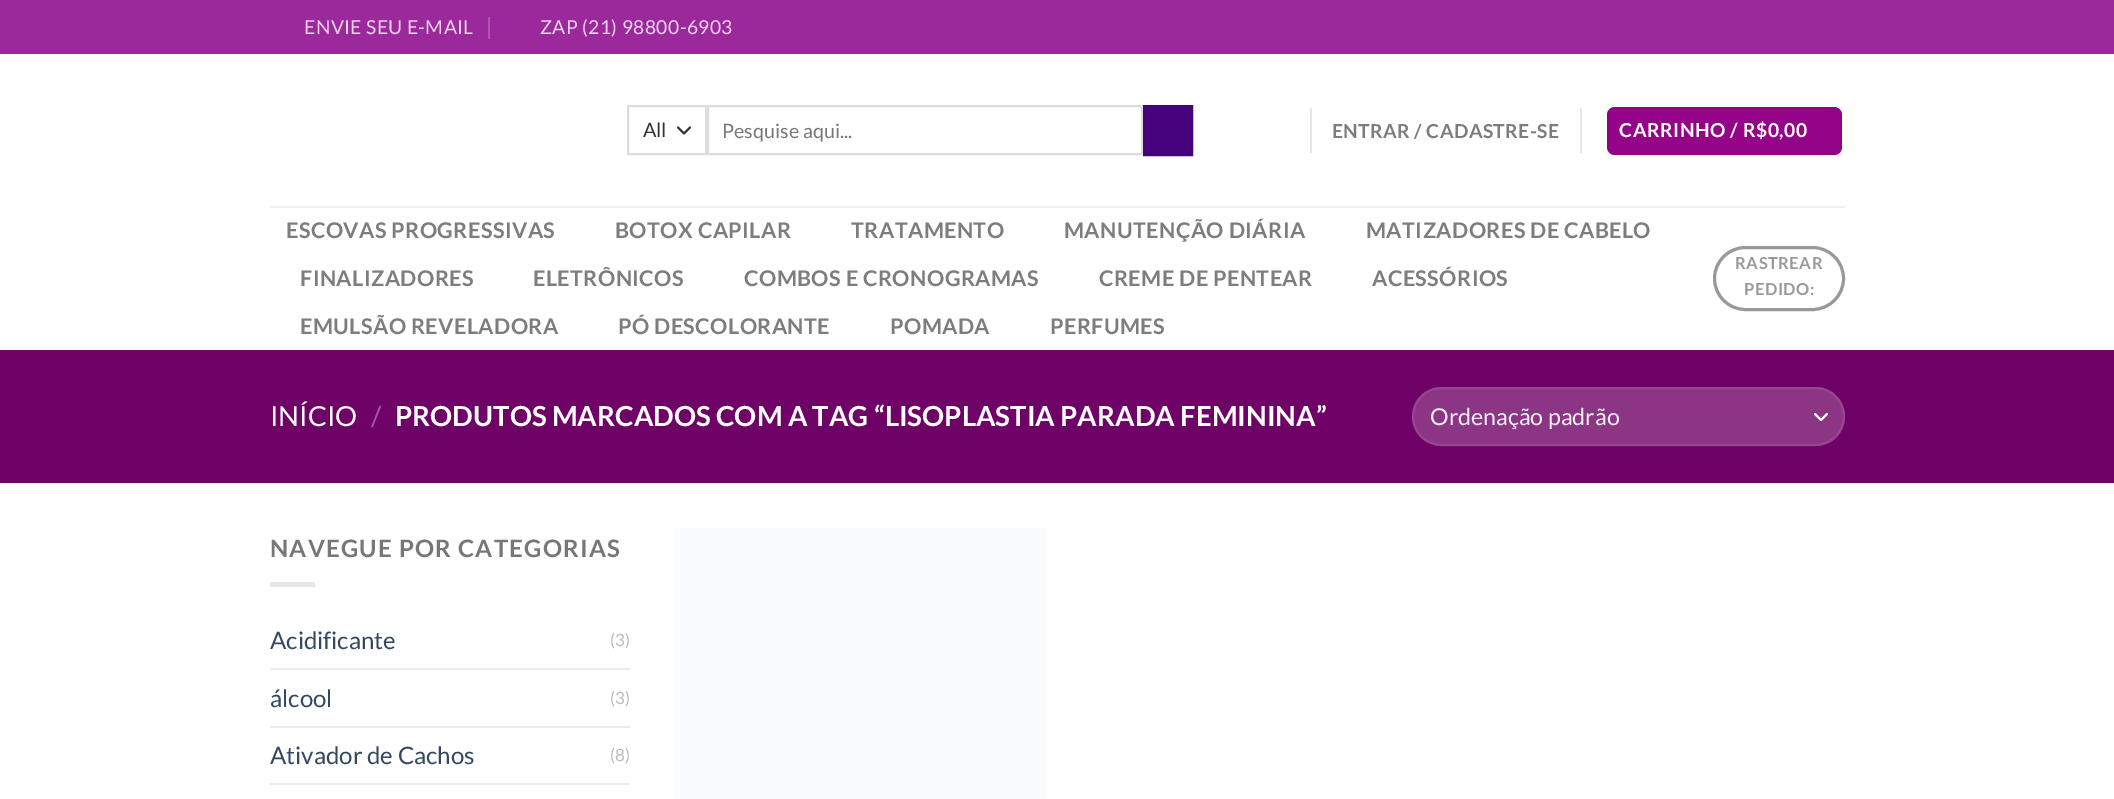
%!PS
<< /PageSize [2114 799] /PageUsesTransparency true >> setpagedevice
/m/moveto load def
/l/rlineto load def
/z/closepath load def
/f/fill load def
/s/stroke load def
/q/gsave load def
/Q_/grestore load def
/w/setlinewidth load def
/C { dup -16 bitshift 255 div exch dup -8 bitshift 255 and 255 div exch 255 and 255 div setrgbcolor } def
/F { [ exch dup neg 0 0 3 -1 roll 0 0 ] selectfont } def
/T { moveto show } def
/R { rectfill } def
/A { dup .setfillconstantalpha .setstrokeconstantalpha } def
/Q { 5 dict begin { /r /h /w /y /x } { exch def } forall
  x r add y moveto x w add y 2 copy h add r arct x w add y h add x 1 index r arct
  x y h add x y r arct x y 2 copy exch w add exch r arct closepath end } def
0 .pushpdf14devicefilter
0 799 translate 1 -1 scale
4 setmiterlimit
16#FFFFFF C
0 0 2114 799 R
16#9B299B C
0 0 2114 54 R
/Lato-Regular 19.25 F
16#EBD4EB C
304 34 m .4 0 (ENVIE SEU E-MAIL) ashow
16#AF54AF C
488 17 2 22 R
16#EBD4EB C
540 34 m .4 0 (ZAP \(21\) 98800-6903) ashow
16#333333 C
2 w
1 setlinecap
1 setlinejoin
678 127.5 m 6 6 l 6 -6 l s
16#DDDDDD C
0 setlinecap
0 setlinejoin
628 106 78 48 rectstroke
/Lato-Regular 19.75 F
16#333333 C
(All) 643 137 T
16#DDDDDD C
708 106 434 48 rectstroke
16#777777 C
(Pesquise aqui...) 722 138 T
16#47037C C
1144 106 m 48 0 l 0 49 l -48 0 l z q f Q_
16#430376 C
s
16#E6E6E6 C
1310 108 2 45 R
/Lato-Bold 19.25 F
16#7D7D7D C
1332 138 m .4 0 (ENTRAR / CADASTRE-SE) ashow
16#E6E6E6 C
1580 108 2 45 R
16#950389 C
1607 107 235 48 8 Q f
0.05 A
16#000000 C
1608 108 233 46 rectstroke
1 A
16#FFFFFF C
1619 137 m .6 0 (CARRINHO / R$0,00) ashow
16#F1F1F1 C
270 206 1575 2 R
/Lato-Bold 21.6 F
16#7D7D7D C
286 238 m .4 0 (ESCOVAS PROGRESSIVAS) ashow
615 238 m .4 0 (BOTOX CAPILAR) ashow
851 238 m .4 0 (TRATAMENTO) ashow
1064 238 m .4 0 (MANUTENÇÃO DIÁRIA) ashow
1366 238 m .4 0 (MATIZADORES DE CABELO) ashow
300 286 m .4 0 (FINALIZADORES) ashow
533 286 m .4 0 (ELETRÔNICOS) ashow
744 286 m .4 0 (COMBOS E CRONOGRAMAS) ashow
1099 286 m .4 0 (CREME DE PENTEAR) ashow
1372 286 m .4 0 (ACESSÓRIOS) ashow
300 334 m .4 0 (EMULSÃO REVELADORA) ashow
618 334 m .4 0 (PÓ DESCOLORANTE) ashow
890 334 m .4 0 (POMADA) ashow
1050 334 m .4 0 (PERFUMES) ashow
16#999999 C
3 w
1714.5 247.5 129 62 31 Q s
/Lato-Bold 16.5 F
1735 269 m .5 0 (RASTREAR) ashow
1744 295 m .5 0 (PEDIDO:) ashow
16#6F0266 C
0 350 2114 133 R
/Lato-Regular 27.6 F
16#FFFFFF C
(INÍCIO) 270 426 T
16#A15B9C C
(/) 371 426 T
/Lato-Bold 27.6 F
16#FFFFFF C
(PRODUTOS MARCADOS COM A TAG “LISOPLASTIA PARADA FEMININA”) 395 426 T
16#8C3585 C
1412 387 433 59 29.5 Q f
16#FFFFFF C
2 w
1 setlinecap
1 setlinejoin
1815 414 m 6 6 l 6 -6 l s
0.09 A
0 setlinecap
0 setlinejoin
1413 388 431 57 28.5 Q s
/Lato-Regular 23.25 F
1 A
16#F1F1F1 C
(Ordenação padrão) 1430 425 T
/Lato-Bold 24 F
16#777777 C
270 557 m 1.2 0 (NAVEGUE POR CATEGORIAS) ashow
16#E6E6E6 C
270 582 45 5 R
/Lato-Regular 24 F
16#334862 C
(Acidificante) 270 649 T
/Lato-Regular 17 F
16#BBBBBB C
(\(3\)) 610 646 T
16#ECECEC C
270 668 360 2 R
/Lato-Regular 24 F
16#334862 C
(álcool) 270 707 T
/Lato-Regular 17 F
16#BBBBBB C
(\(3\)) 610 704 T
16#ECECEC C
270 726 360 2 R
/Lato-Regular 24 F
16#334862 C
(Ativador de Cachos) 270 764 T
/Lato-Regular 17 F
16#BBBBBB C
(\(8\)) 610 761 T
16#ECECEC C
270 783 360 2 R
16#FAFBFC C
675 528 371 271 R
.poppdf14devicefilter showpage
